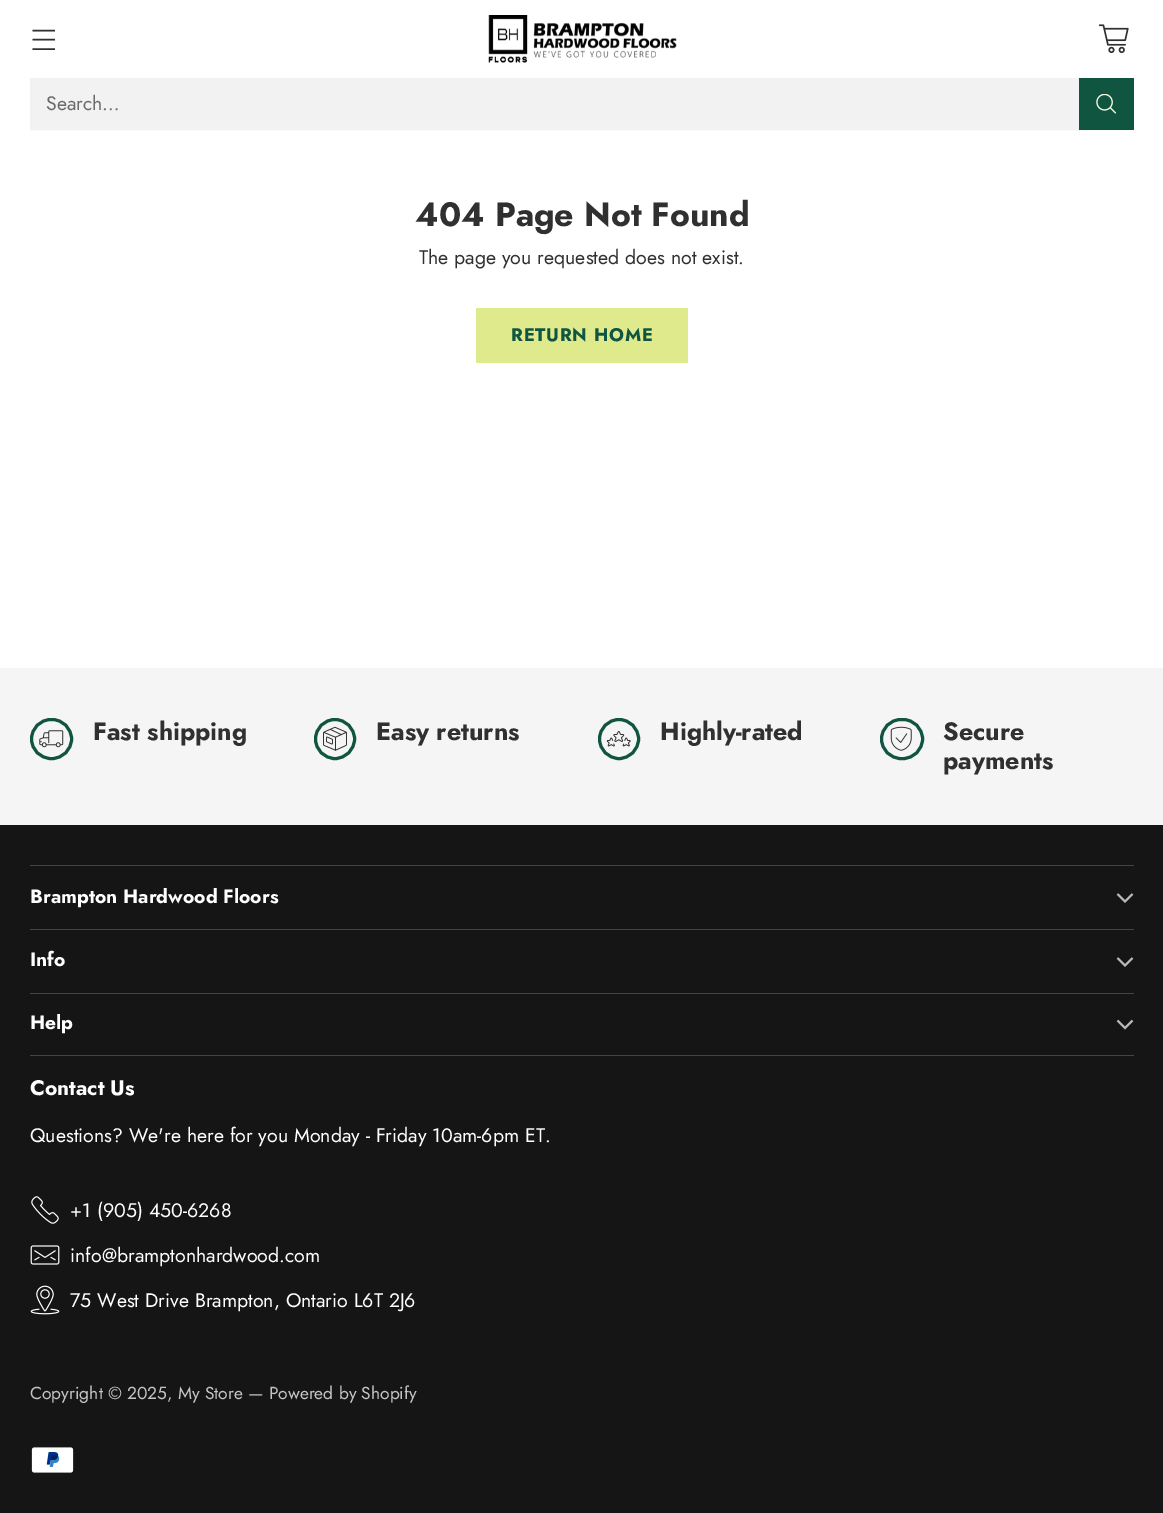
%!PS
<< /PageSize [1163 1513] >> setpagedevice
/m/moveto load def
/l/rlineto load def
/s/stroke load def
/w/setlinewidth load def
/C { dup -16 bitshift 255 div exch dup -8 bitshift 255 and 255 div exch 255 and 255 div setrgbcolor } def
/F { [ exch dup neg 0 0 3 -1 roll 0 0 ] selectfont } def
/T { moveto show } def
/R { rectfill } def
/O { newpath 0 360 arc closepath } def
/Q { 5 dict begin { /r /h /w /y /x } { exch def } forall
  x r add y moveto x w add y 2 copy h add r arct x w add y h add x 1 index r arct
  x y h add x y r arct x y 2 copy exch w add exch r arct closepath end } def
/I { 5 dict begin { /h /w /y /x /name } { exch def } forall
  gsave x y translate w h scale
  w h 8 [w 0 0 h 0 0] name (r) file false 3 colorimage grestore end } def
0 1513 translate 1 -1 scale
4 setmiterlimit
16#FFFFFF C
0 0 1163 1513 R
16#303030 C
1.6 w
32.5 39.5 m 22.5 0 l 32.5 30.5 m 22.5 0 l 32.5 49 m 22.5 0 l s
(1.rgb) 488 15 189 48 I
(2.rgb) 1098 24 31 30 I
16#F2F2F2 C
1 w
30.5 78.5 1103 51 rectstroke
31 79 1048 50 R
/Jost-Regular 19.55 F
16#6A6A6A C
(Search…) 46 110 T
16#105540 C
1079 78 55 52 R
(3.rgb) 1096 94 20 20 I
/Jost-Bold 33.75 F
16#303030 C
(404 Page Not Found) 415 226 T
/Jost-Regular 19.55 F
(The page you requested does not exist.) 419 264 T
16#DFEA8D C
476 308 212 55 R
/Jost-Bold 18.25 F
16#105541 C
511 341 m .75 0 (RETURN HOME) ashow
16#F5F5F5 C
0 668 1163 157 R
16#105541 C
3 w
31.5 719.5 40 39 19.5 Q s
(4.rgb) 39 730 25 18 I
/Jost-Bold 25 F
16#303030 C
(Fast shipping) 93 740 T
16#105541 C
335 739 19.5 O s
(5.rgb) 323 726 24 25 I
16#303030 C
(Easy returns) 376 740 T
16#105541 C
619 739 19.5 O s
(6.rgb) 606 731 25 16 I
16#303030 C
(Highly-rated) 660 740 T
16#105541 C
881.5 719.5 41 39 19.5 Q s
(7.rgb) 890 726 22 25 I
16#303030 C
(Secure) 943 740 T
(payments) 943 769 T
16#151515 C
0 825 1163 688 R
16#444444 C
30 865 1104 1 R
30 929 1104 1 R
/Jost-Bold 19.25 F
16#FFFFFF C
(Brampton Hardwood Floors) 30 903 T
16#B9B9B9 C
2 w
1117.5 894 m 7.5 7.5 l 7.5 -7.5 l s
16#444444 C
30 993 1104 1 R
16#FFFFFF C
(Info) 30 966 T
16#B9B9B9 C
1117.5 958 m 7.5 7.5 l 7.5 -7.5 l s
16#444444 C
30 1055 1104 1 R
16#FFFFFF C
(Help) 30 1029 T
16#B9B9B9 C
1117.5 1020.5 m 7.5 7.5 l 7.5 -7.5 l s
/Jost-Bold 21 F
16#FFFFFF C
(Contact Us) 30 1095 T
/Jost-Regular 19.55 F
(Questions? We're here for you Monday - Friday 10am-6pm ET.) 30 1142 T
(8.rgb) 31 1196 28 28 I
(+1 \(905\) 450-6268) 70 1217 T
(9.rgb) 30 1245 30 20 I
(info@bramptonhardwood.com) 70 1262 T
(10.rgb) 30 1285 30 30 I
(75 West Drive Brampton, Ontario L6T 2J6) 70 1307 T
/Jost-Regular 17.4 F
16#C5C5C5 C
(Copyright © 2025, My Store — Powered by Shopify) 30 1399 T
(11.rgb) 31 1447 43 26 I
showpage
